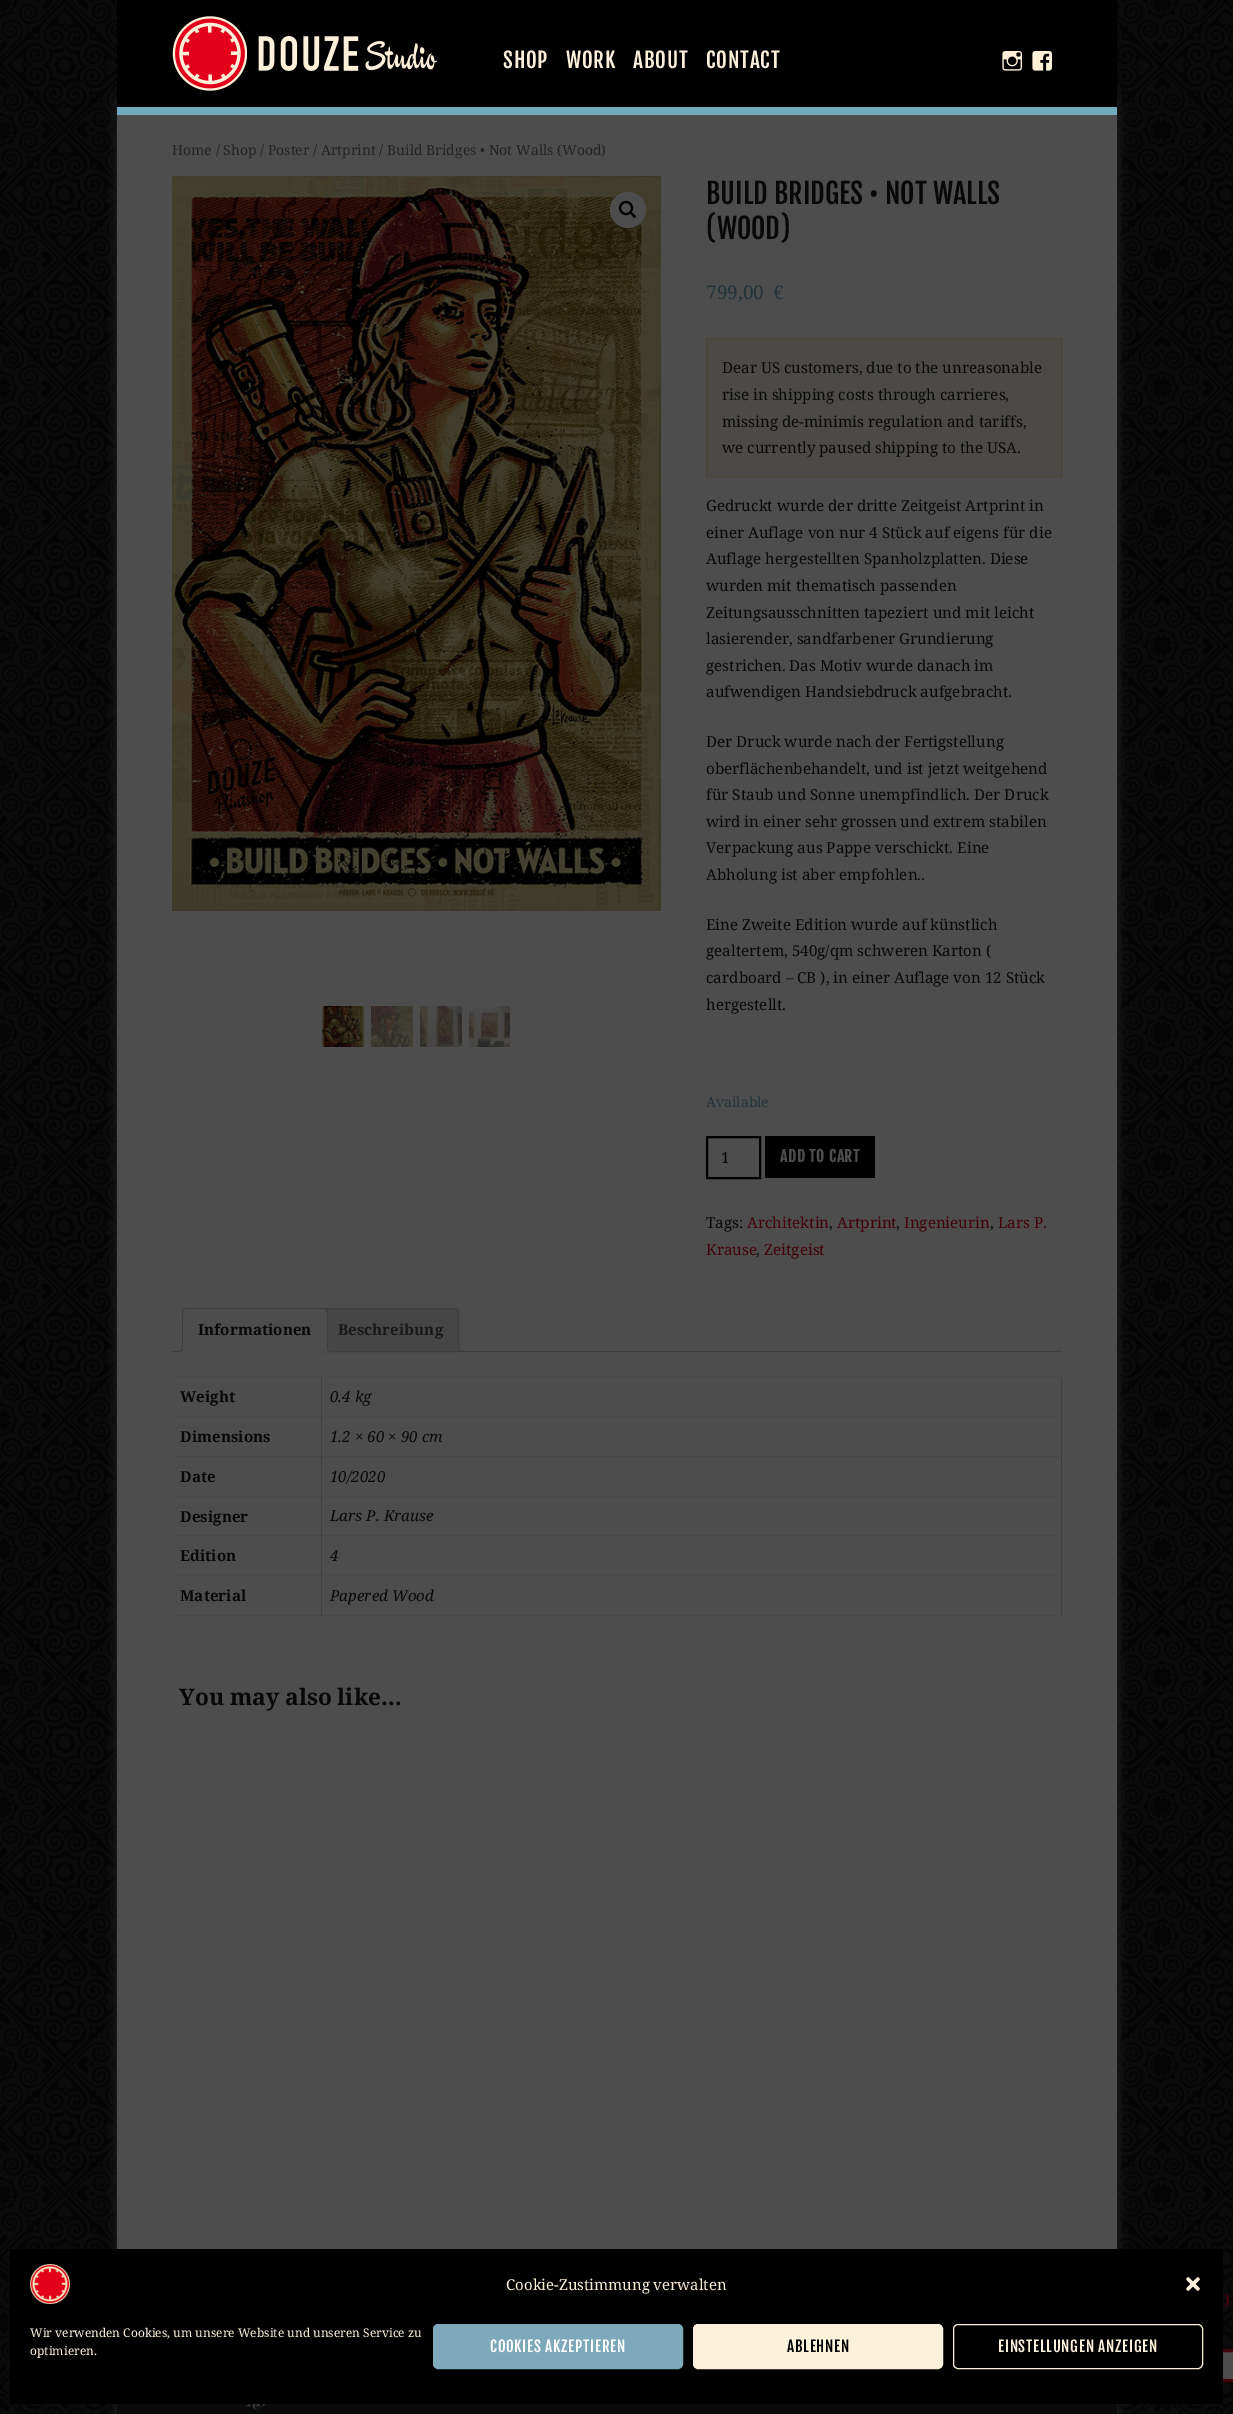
%!PS
<< /PageSize [1233 2414] /PageUsesTransparency true >> setpagedevice
/m/moveto load def
/l/rlineto load def
/c/rcurveto load def
/z/closepath load def
/f/fill load def
/s/stroke load def
/q/gsave load def
/Q_/grestore load def
/w/setlinewidth load def
/C { dup -16 bitshift 255 div exch dup -8 bitshift 255 and 255 div exch 255 and 255 div setrgbcolor } def
/F { [ exch dup neg 0 0 3 -1 roll 0 0 ] selectfont } def
/T { moveto show } def
/R { rectfill } def
/A { dup .setfillconstantalpha .setstrokeconstantalpha } def
/O { newpath 0 360 arc closepath } def
/Q { 5 dict begin { /r /h /w /y /x } { exch def } forall
  x r add y moveto x w add y 2 copy h add r arct x w add y h add x 1 index r arct
  x y h add x y r arct x y 2 copy exch w add exch r arct closepath end } def
/S { 12 dict begin { /a /b /q /h /w /y /x } { exch def } forall gsave /was 0 def
  9 -2 -9 { dup b mul 4 div /e exch def 1 sub .425 mul 2.718 exch exp 1 add a .99 .min exch div /now exch def
    1 1 now sub 1 was sub div sub A /was now def
    w h .min e 2 mul add 0 gt { x e sub y e sub w e 2 mul add h e 2 mul add
      q e add b .6 mul add w h .min 2 div e add .min 0 .max Q fill } if } for grestore end } def
/I { 5 dict begin { /h /w /y /x /name } { exch def } forall
  gsave x y translate w h scale
  w h 8 [w 0 0 h 0 0] name (r) file false 3 colorimage grestore end } def
0 .pushpdf14devicefilter
0 2414 translate 1 -1 scale
4 setmiterlimit
16#FFFFFF C
0 0 1233 2414 R
(1.rgb) 0 0 1233 2414 I
16#4D4D4D C
117 115 1000 2134 R
q
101 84 m 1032 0 l 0 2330 l -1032 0 l z 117 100 m 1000 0 l 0 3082 l -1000 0 l z eoclip newpath
16#262626 C
117 100 1000 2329 0 5 1 S
Q_
16#000000 C
117 0 1000 107 R
16#71ABBD C
117 107 1000 8 R
(2.rgb) 172 16 75 75 I
(3.rgb) 258 36 179 35 I
/FjallaOne-Regular 21 F
16#FCF0DB C
503 68 m .75 0 (SHOP) ashow
566 68 m .75 0 (WORK) ashow
633 68 m .75 0 (ABOUT) ashow
706 68 m .75 0 (CONTACT) ashow
(4.rgb) 1002 51 20 20 I
(5.rgb) 1032 51 20 20 I
/NotoSerif-Regular 14 F
16#232323 C
(Home / Shop / Poster / Artprint / Build Bridges • Not Walls \(Wood\)) 172 155 T
(6.rgb) 172 176 489 735 I
16#4D4D4D C
628 210 18 O f
16#000000 C
2 w
626 208 6 O s
630 212 m 1 -1.5 3 1.5 3.5 2 c .5 .5 3.5 2.5 2 3.5 c -1 1 -3 -1.5 -3.5 -2 c -.5 -1 -3 -2.5 -2 -3.5 c z f
(7.rgb) 322 1006 42 41 I
(8.rgb) 371 1006 42 41 I
(9.rgb) 420 1006 42 41 I
(10.rgb) 469 1006 41 41 I
/FjallaOne-Regular 28 F
16#080808 C
(BUILD BRIDGES • NOT WALLS) 706 204 T
(\(WOOD\)) 706 239 T
/NotoSerif-Regular 19 F
16#223339 C
(799,00) 706 299 T
(€) 773 299 T
16#4C4A46 C
706.5 338.5 m 355 0 l 0 138 l -355 0 l z q f Q_
16#4B4335 C
1 w
s
/NotoSerif-Regular 15.2 F
16#080808 C
(Dear US customers, due to the unreasonable) 722 373 T
(rise in shipping costs through carrieres,) 722 400 T
(missing de-minimis regulation and tariffs,) 722 427 T
(we currently paused shipping to the USA.) 722 453 T
(Gedruckt wurde der dritte Zeitgeist Artprint in) 706 511 T
(einer Auflage von nur 4 Stück auf eigens für die) 706 538 T
(Auflage hergestellten Spanholzplatten. Diese) 706 564 T
(wurden mit thematisch passenden) 706 591 T
(Zeitungsausschnitten tapeziert und mit leicht) 706 618 T
(lasierender, sandfarbener Grundierung) 706 644 T
(gestrichen. Das Motiv wurde danach im) 706 671 T
(aufwendigen Handsiebdruck aufgebracht.) 706 697 T
(Der Druck wurde nach der Fertigstellung) 706 747 T
(oberflächenbehandelt, und ist jetzt weitgehend) 706 774 T
(für Staub und Sonne unempfindlich. Der Druck) 706 800 T
(wird in einer sehr grossen und extrem stabilen) 706 827 T
(Verpackung aus Pappe verschickt. Eine) 706 853 T
(Abholung ist aber empfohlen..) 706 880 T
(Eine Zweite Edition wurde auf künstlich) 706 930 T
(gealtertem, 540g/qm schweren Karton \() 706 956 T
(cardboard – CB \), in einer Auflage von 12 Stück) 706 983 T
(hergestellt.) 706 1010 T
/NotoSerif-Regular 14 F
16#223339 C
(Available) 706 1107 T
16#000000 C
2 w
707 1137 53 41 rectstroke
/NotoSerif-Regular 15.2 F
(1) 721 1163 T
765 1136 110 42 1 Q f
/FjallaOne-Bold 15.2 F
16#4D4D4D C
780 1162 m .75 0 (ADD TO CART) ashow
/NotoSerif-Regular 15.2 F
16#080808 C
(Tags:) 706 1228 T
16#440008 C
(Architektin) 747 1228 T
16#080808 C
(,) 829 1228 T
16#440008 C
(Artprint) 837 1228 T
16#080808 C
(,) 896 1228 T
16#440008 C
(Ingenieurin) 904 1228 T
16#080808 C
(,) 990 1228 T
16#440008 C
(Lars P.) 998 1228 T
(Krause) 706 1255 T
16#080808 C
(,) 756 1255 T
16#440008 C
(Zeitgeist) 764 1255 T
16#474647 C
325 1308.5 m 130 0 l 2 0 3.5 1.5 3.5 3.5 c 0 39.5 l -137 0 l 0 -39.5 l 0 -2 1.5 -3.5 3.5 -3.5 c z q f Q_
16#3F3E3F C
1 w
s
q
172 1308 890 44 rectclip
16#474647 C
456 1349 m 0 3.5 1.5 5 5 5 c 0 -2 l -1.5 -.5 -2.5 -1.5 -3 -3 c z f
Q_
458 1347 m 5 0 l 0 5 l -2.5 0 -5 -1 -5 -4 c z 459 1347 m 4 0 l 0 4 l -2 0 -4 -.5 -4 -3 c z eofill
172 1351 890 1 R
16#4D4D4D C
186 1308 m 138 0 l 2 0 4 2 4 4 c 0 40 l -146 0 l 0 -40 l 0 -2 2 -4 4 -4 c z f
16#3F3E3F C
186 1308 m -3 1 l 1 1 l 2 -1 l 138 0 l 2 1 l 1 -1 l -3 -1 l z f
328 1352 m 0 -40 l 0 -1 0 -2 -1 -3 c -1 1 l 2 2 1 36 1 41 c z f
16#4D4D4D C
328 1352 m -1 -1 l -144 0 l -1 1 l z f
16#3F3E3F C
182 1352 m 1 -1 l 0 -5 -1 -39 1 -41 c -1 -1 l -1 3 l z f
/NotoSerif-Bold 15.2 F
16#080808 C
(Informationen) 198 1335 T
q
172 1308 890 44 rectclip
16#4D4D4D C
180 1352 m 0 2 l 3.5 0 5 -1.5 5 -5 c -2 0 l -.5 1.5 -1.5 2.5 -3 3 c z f
Q_
16#3F3E3F C
178 1347 m 5 0 l 0 3.5 -1.5 5 -5 5 c z 178 1347 m 4 0 l 0 3 -1 4 -4 4 c z eofill
q
172 1308 890 44 rectclip
16#4D4D4D C
325 1349 m 0 3.5 1.5 5 5 5 c 0 -2 l -1.5 -.5 -2.5 -1.5 -3 -3 c z f
Q_
327 1347 m 5 0 l 0 5 l -2.5 0 -5 -1 -5 -4 c z 328 1347 m 4 0 l 0 4 l -2 0 -4 -.5 -4 -3 c z eofill
16#181818 C
(Beschreibung) 338 1335 T
16#454545 C
[1 1] 0 setdash
172 1376.5 m 890 0 l s
16#3F3F3F C
322 1377 m 0 40 l -1 -1 l 0 -39 l z f
16#454545 C
172 1416.5 m 150 0 l s
16#080808 C
(Weight) 180 1402 T
16#3F3F3F C
1062 1377 m 0 40 l -1 -1 l 0 -39 l z f
16#454545 C
322 1416.5 m 740 0 l s
/NotoSerif-Italic 15.2 F
16#080808 C
(0.4 kg) 330 1402 T
16#3F3F3F C
322 1417 m 0 40 l -1 -1 l 0 -39 l z f
16#434343 C
172 1456.5 m 150 0 l s
/NotoSerif-Bold 15.2 F
16#080808 C
(Dimensions) 180 1442 T
16#3F3F3F C
1062 1417 m 0 40 l -1 -1 l 0 -39 l z f
16#434343 C
322 1456.5 m 740 0 l s
/NotoSerif-Italic 15.2 F
16#080808 C
(1.2 × 60 × 90 cm) 330 1442 T
16#3F3F3F C
322 1457 m 0 40 l -1 -1 l 0 -39 l z f
16#454545 C
172 1496.5 m 150 0 l s
/NotoSerif-Bold 15.2 F
16#080808 C
(Date) 180 1482 T
16#3F3F3F C
1062 1457 m 0 40 l -1 -1 l 0 -39 l z f
16#454545 C
322 1496.5 m 740 0 l s
/NotoSerif-Italic 15.2 F
16#080808 C
(10/2020) 330 1482 T
16#3F3F3F C
322 1497 m 0 39 l -1 -1 l 0 -38 l z f
16#434343 C
172 1535.5 m 150 0 l s
/NotoSerif-Bold 15.2 F
16#080808 C
(Designer) 180 1522 T
16#3F3F3F C
1062 1497 m 0 39 l -1 -1 l 0 -38 l z f
16#434343 C
322 1535.5 m 740 0 l s
/NotoSerif-Italic 15.2 F
16#080808 C
(Lars P. Krause) 330 1521 T
16#3F3F3F C
322 1536 m 0 40 l -1 -1 l 0 -39 l z f
16#454545 C
172 1575.5 m 150 0 l s
/NotoSerif-Bold 15.2 F
16#080808 C
(Edition) 180 1561 T
16#3F3F3F C
1062 1536 m 0 40 l -1 -1 l 0 -39 l z f
16#454545 C
322 1575.5 m 740 0 l s
/NotoSerif-Italic 15.2 F
16#080808 C
(4) 330 1561 T
16#3F3F3F C
322 1576 m 0 40 l -1 -1 l 0 -39 l z f
16#434343 C
172 1615.5 m 150 0 l s
/NotoSerif-Bold 15.2 F
16#080808 C
(Material) 180 1601 T
16#3F3F3F C
1062 1576 m 0 40 l -1 -1 l 0 -39 l z f
16#434343 C
322 1615.5 m 740 0 l s
/NotoSerif-Italic 15.2 F
16#080808 C
(Papered Wood) 330 1601 T
/NotoSerif-Bold 22.75 F
(You may also like…) 179 1705 T
/NotoSerif-Bold 15.2 F
16#440008 C
(\)) 1224 2305 T
16#4D4D4D C
1223 2352 10 27 R
16#43010B C
3 w
[] 0 setdash
1005.5 2350.5 m 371 0 l 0 30 l -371 0 l z s
16#0B090A C
117 2404 1000 10 R
(11.rgb) 244 2404 22 6 I
16#000000 C
10 2249 1213 155 R
(12.rgb) 30 2264 40 40 I
/NotoSerif-Regular 15 F
16#FCF0DB C
(Cookie-Zustimmung verwalten) 506 2290 T
(13.rgb) 1186 2277 14 14 I
/NotoSerif-Regular 12 F
(Wir verwenden Cookies, um unsere Website und unseren Service zu) 30 2337 T
(optimieren.) 30 2355 T
16#7EA9BB C
433.5 2324.5 249 44 4.5 Q q f Q_
1 w
s
/FjallaOne-Regular 15 F
16#FFFFFF C
490 2352 m .7 0 (COOKIES AKZEPTIEREN) ashow
16#FCF1DA C
693.5 2324.5 249 44 4.5 Q q f Q_
s
16#000000 C
787 2352 m .7 0 (ABLEHNEN) ashow
16#FCF1DA C
953.5 2324.5 249 44 4.5 Q s
16#FCF0DB C
998 2352 m .7 0 (EINSTELLUNGEN ANZEIGEN) ashow
.poppdf14devicefilter showpage
